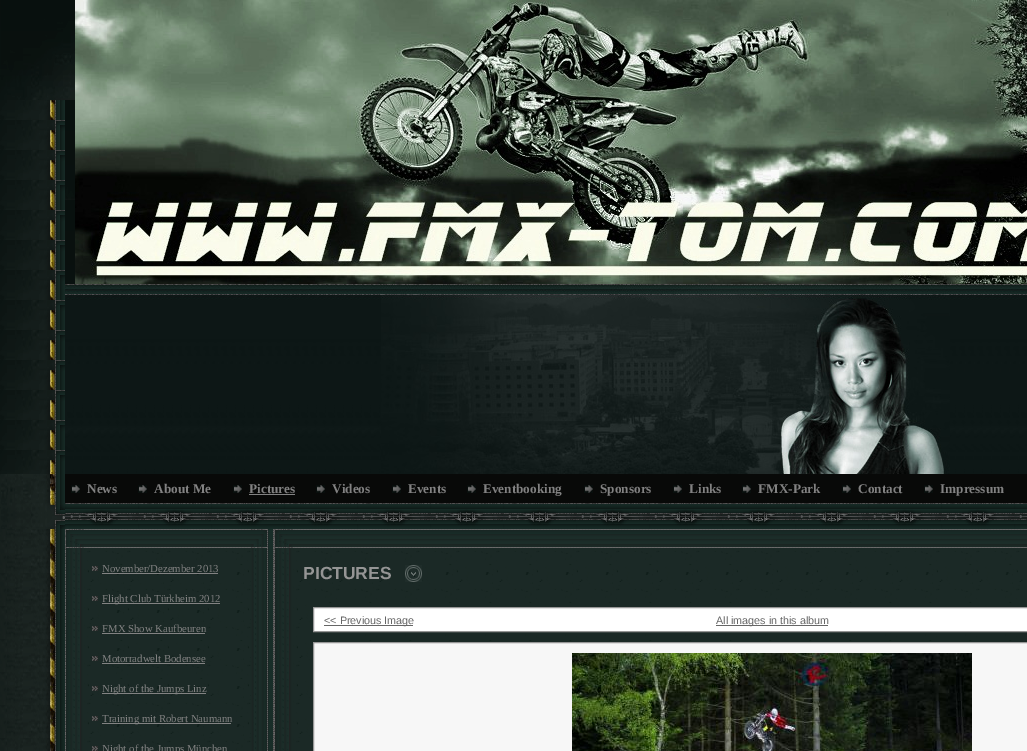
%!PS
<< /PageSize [1027 751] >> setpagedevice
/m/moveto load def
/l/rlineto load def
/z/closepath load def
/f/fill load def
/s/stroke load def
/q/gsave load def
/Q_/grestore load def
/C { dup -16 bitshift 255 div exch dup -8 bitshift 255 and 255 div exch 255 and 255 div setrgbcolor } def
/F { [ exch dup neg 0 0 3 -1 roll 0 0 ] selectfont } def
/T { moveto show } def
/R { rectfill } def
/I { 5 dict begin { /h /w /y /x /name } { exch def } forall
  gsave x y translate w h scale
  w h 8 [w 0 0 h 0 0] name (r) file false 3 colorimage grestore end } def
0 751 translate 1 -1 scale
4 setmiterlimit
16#FFFFFF C
0 0 1027 751 R
(1.rgb) 0 100 65 374 I
(2.rgb) 0 0 65 100 I
(3.rgb) 65 0 10 284 I
(4.rgb) 65 21 10 79 I
(5.rgb) 75 0 952 284 I
(6.rgb) 65 284 962 190 I
(7.rgb) 381 284 569 190 I
(8.rgb) 0 474 65 277 I
(9.rgb) 1 474 64 55 I
16#080908 C
65 474 962 29 R
(10.rgb) 71 485 9 8 I
/LiberationSerif-Bold 13.25 F
16#828282 C
(News) 87 493 T
(10.rgb) 138 485 9 8 I
(About Me) 154 493 T
(10.rgb) 233 485 9 8 I
(Pictures) 249 493 T
249 494 46 1 R
(10.rgb) 316 485 9 8 I
(Videos) 332 493 T
(10.rgb) 392 485 9 8 I
(Events) 408 493 T
(10.rgb) 467 485 9 8 I
(Eventbooking) 483 493 T
(10.rgb) 584 485 9 8 I
(Sponsors) 600 493 T
(10.rgb) 673 485 9 8 I
(Links) 689 493 T
(10.rgb) 742 485 9 8 I
(FMX-Park) 758 493 T
(10.rgb) 842 485 9 8 I
(Contact) 858 493 T
(10.rgb) 924 485 9 8 I
(Impressum) 940 493 T
(11.rgb) 65 503 962 26 I
(12.rgb) 65 529 19 19 I
(13.rgb) 84 529 167 19 I
(14.rgb) 251 529 16 19 I
(15.rgb) 267 529 7 19 I
(12.rgb) 274 529 19 19 I
(16.rgb) 293 529 734 19 I
(17.rgb) 65 548 19 203 I
(18.rgb) 84 548 167 203 I
(19.rgb) 92 566 6 5 I
/LiberationSerif-Regular 10.75 F
(November/Dezember 2013) 102 572 T
102 573 116 1 R
(19.rgb) 92 596 6 5 I
102 603 118 1 R
(Flight Club Türkheim 2012) 102 602 T
(19.rgb) 92 626 6 5 I
(FMX Show Kaufbeuren) 102 632 T
102 633 103 1 R
(19.rgb) 92 656 6 5 I
(Motorradwelt Bodensee) 102 662 T
102 663 103 1 R
(19.rgb) 92 686 6 5 I
102 693 104 1 R
(Night of the Jumps Linz) 102 692 T
(19.rgb) 92 716 6 5 I
102 723 129 1 R
(Training mit Robert Naumann) 102 722 T
(19.rgb) 92 746 6 5 I
(Night of the Jumps München) 102 752 T
(20.rgb) 251 548 16 203 I
(21.rgb) 267 548 7 203 I
(17.rgb) 274 548 19 203 I
(22.rgb) 293 548 734 203 I
/LiberationSans-Bold 17.5 F
16#959595 C
(PICTURES) 303 579 T
(23.rgb) 405 565 17 17 I
16#FFFFFF C
313.5 607.5 m 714 0 l 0 24 l -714 0 l z q f Q_
16#969696 C
s
16#666666 C
324 625 89 1 R
/LiberationSans-Regular 10.75 F
(<< Previous Image) 324 624 T
716 625 112 1 R
(All images in this album) 716 624 T
16#F7F7F7 C
313.5 642.5 m 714 0 l 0 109 l -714 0 l z q f Q_
16#969696 C
s
(24.rgb) 572 653 400 98 I
showpage
